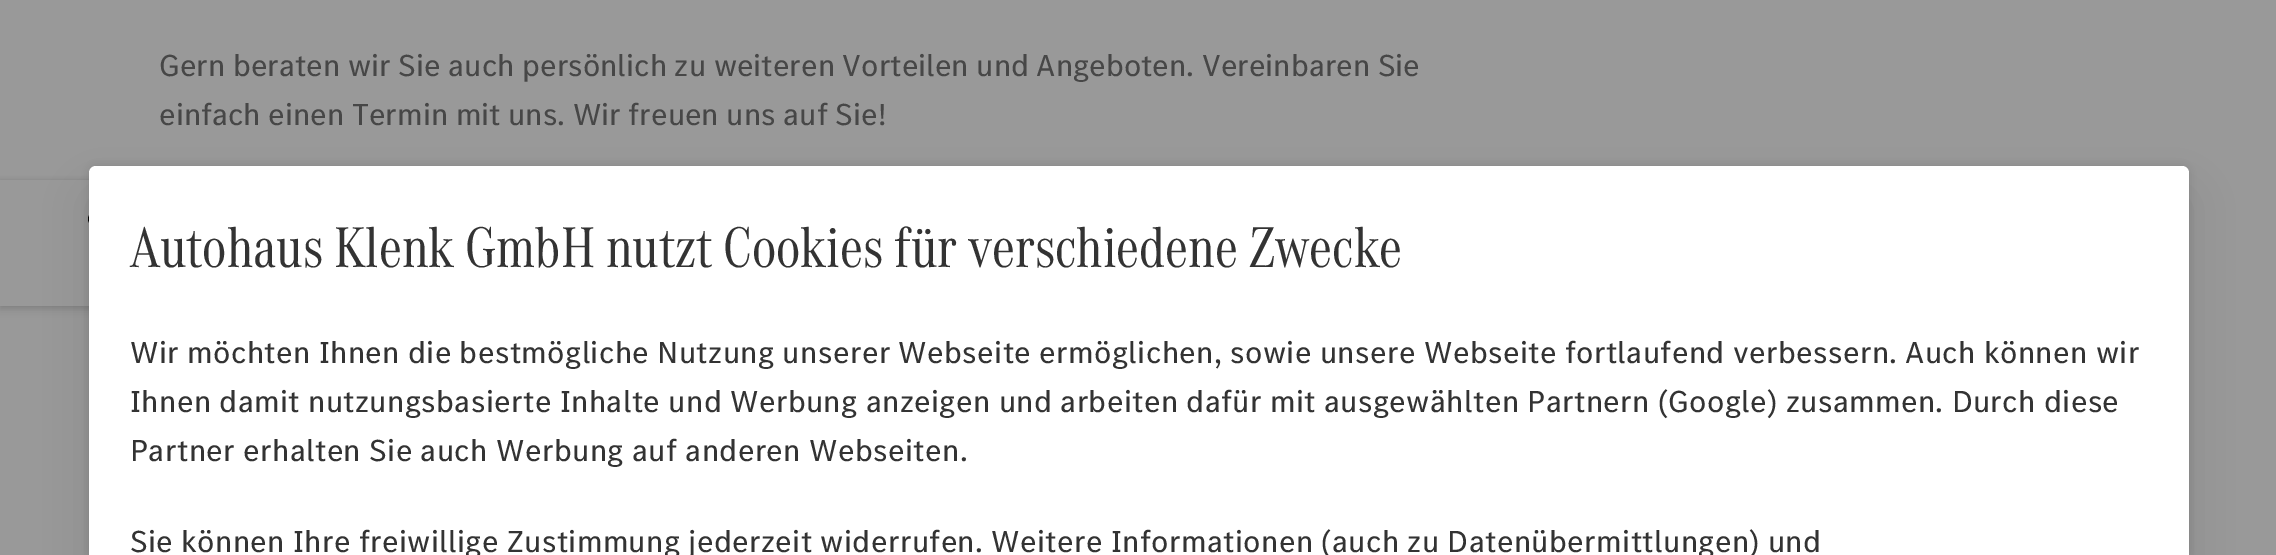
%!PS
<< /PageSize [2276 555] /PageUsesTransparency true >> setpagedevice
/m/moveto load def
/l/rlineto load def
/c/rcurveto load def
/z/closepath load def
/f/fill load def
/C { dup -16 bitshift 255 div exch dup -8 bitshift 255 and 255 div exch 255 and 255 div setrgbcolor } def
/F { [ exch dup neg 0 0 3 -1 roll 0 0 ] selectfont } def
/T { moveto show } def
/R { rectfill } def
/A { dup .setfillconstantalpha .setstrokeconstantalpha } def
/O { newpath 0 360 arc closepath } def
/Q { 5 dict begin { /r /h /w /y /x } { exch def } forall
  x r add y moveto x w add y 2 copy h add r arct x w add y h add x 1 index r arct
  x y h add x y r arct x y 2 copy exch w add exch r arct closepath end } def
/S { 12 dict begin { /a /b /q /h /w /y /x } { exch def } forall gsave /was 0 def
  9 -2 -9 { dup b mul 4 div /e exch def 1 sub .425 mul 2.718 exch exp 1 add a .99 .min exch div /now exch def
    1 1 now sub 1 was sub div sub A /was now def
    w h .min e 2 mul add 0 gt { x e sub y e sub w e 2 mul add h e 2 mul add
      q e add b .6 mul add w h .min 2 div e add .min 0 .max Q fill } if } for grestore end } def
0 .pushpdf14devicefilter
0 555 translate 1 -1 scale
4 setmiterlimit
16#999999 C
0 0 2276 555 R
/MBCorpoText-Regular 31.5 F
16#474747 C
(Gern beraten wir Sie auch persönlich zu weiteren Vorteilen und Angeboten. Vereinbaren Sie) 159 76 T
(einfach einen Termin mit uns. Wir freuen uns auf Sie!) 159 125 T
16#000000 C
0 184 296 126 0 3.5 .1 S
0 180 296 126 0 2 .1 S
16#999999 C
0 180 89 126 R
16#000000 C
95 219 7 O f
89 194 2100 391 7 21 .1 S
89 166 2100 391 7 3.5 .1 S
16#FFFFFF C
96 166 m 2086 0 l 4 0 7 3 7 7 c 0 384 l -2100 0 l 0 -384 l 0 -4 3 -7 7 -7 c z f
/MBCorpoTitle-Regular 59.5 F
16#333333 C
(Autohaus Klenk GmbH nutzt Cookies für verschiedene Zwecke) 130 267 T
/MBCorpoText-Regular 31.5 F
130 363 m .35 0 (Wir möchten Ihnen die bestmögliche Nutzung unserer Webseite ermöglichen, sowie unsere Webseite fortlaufend verbessern. Auch können wir) ashow
130 412 m .35 0 (Ihnen damit nutzungsbasierte Inhalte und Werbung anzeigen und arbeiten dafür mit ausgewählten Partnern \(Google\) zusammen. Durch diese) ashow
130 461 m .35 0 (Partner erhalten Sie auch Werbung auf anderen Webseiten.) ashow
130 552 m .35 0 (Sie können Ihre freiwillige Zustimmung jederzeit widerrufen. Weitere Informationen \(auch zu Datenübermittlungen\) und) ashow
.poppdf14devicefilter showpage
